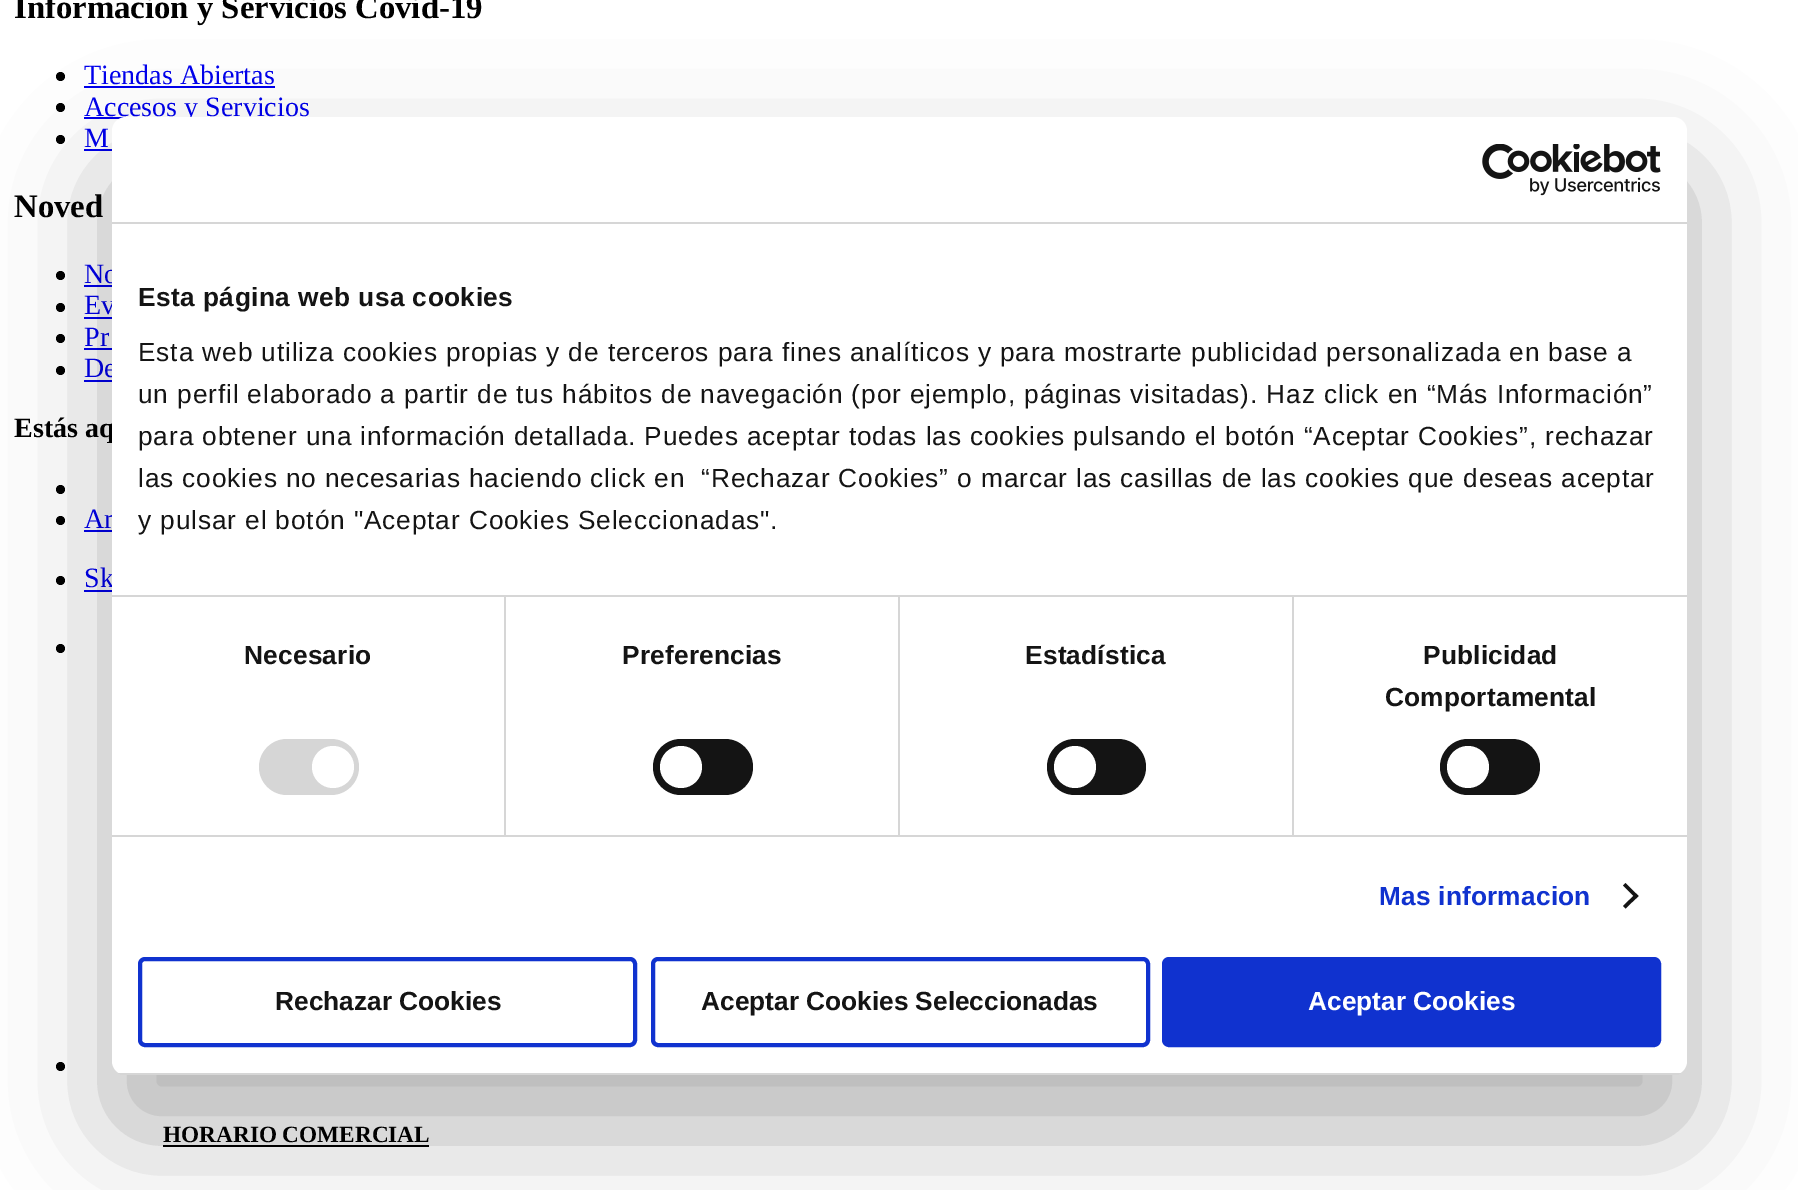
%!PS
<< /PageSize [1798 1190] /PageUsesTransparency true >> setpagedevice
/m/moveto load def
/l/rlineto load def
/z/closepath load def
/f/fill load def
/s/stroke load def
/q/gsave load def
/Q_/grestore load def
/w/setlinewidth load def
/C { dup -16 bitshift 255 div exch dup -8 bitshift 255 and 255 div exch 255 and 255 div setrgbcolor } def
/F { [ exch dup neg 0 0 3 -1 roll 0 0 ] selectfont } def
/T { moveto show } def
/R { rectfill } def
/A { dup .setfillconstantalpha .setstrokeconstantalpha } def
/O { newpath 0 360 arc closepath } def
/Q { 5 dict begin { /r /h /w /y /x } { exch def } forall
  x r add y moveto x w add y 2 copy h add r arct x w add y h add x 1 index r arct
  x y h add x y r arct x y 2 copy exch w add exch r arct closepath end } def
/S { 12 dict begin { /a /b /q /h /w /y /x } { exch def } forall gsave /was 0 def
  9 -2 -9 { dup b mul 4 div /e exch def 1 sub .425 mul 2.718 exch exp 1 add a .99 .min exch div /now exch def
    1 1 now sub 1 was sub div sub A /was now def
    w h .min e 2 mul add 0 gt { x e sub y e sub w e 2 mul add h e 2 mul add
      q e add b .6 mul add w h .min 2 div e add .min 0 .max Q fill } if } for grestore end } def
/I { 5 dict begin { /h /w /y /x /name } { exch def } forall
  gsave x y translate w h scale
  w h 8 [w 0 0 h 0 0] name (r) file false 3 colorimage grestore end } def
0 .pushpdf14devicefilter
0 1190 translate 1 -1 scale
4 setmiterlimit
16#FFFFFF C
0 0 1798 1190 R
/LiberationSerif-Bold 32.75 F
16#000000 C
(Información y Servicios Covid-19) 14 18 T
60.5 76.5 4.5 O f
/LiberationSerif-Regular 28 F
16#0000EE C
(Tiendas Abiertas) 84 84 T
84 86 191 2 R
16#000000 C
60.5 107.5 4.5 O f
16#0000EE C
84 117 42 2 R
(Accesos y Servicios) 84 116 T
16#000000 C
60.5 139.5 4.5 O f
16#0000EE C
(M) 84 147 T
84 149 28 2 R
/LiberationSerif-Bold 32.75 F
16#000000 C
(Noved) 14 217 T
60.5 275.5 4.5 O f
/LiberationSerif-Regular 28 F
16#0000EE C
(No) 84 283 T
84 285 28 2 R
16#000000 C
60.5 307.5 4.5 O f
16#0000EE C
(Ev) 84 314 T
84 317 28 2 R
16#000000 C
60.5 338.5 4.5 O f
16#0000EE C
(Pr) 84 346 T
84 348 28 2 R
16#000000 C
60.5 370.5 4.5 O f
16#0000EE C
(De) 84 377 T
84 380 28 2 R
/LiberationSerif-Bold 28 F
16#000000 C
(Estás aq) 14 437 T
60.5 489.5 4.5 O f
60.5 520.5 4.5 O f
/LiberationSerif-Regular 28 F
16#0000EE C
(Ar) 84 528 T
84 530 28 2 R
16#000000 C
60.5 580.5 4.5 O f
16#0000EE C
(Sk) 84 587 T
84 590 28 2 R
16#000000 C
60.5 648.5 4.5 O f
60.5 1066.5 4.5 O f
/LiberationSerif-Bold 23.25 F
(HORARIO COMERCIAL) 163 1142 T
163 1145 266 2 R
112 173 1575 958 14 59.5 .3 S
16#FFFFFF C
112 117 1575 958 14 Q f
16#D6D6D6 C
112 222 1575 2 R
(1.rgb) 1482 144 179 52 I
112 595 1575 2 R
/LiberationSans-Bold 26.25 F
16#141414 C
138 306 m .45 0 (Esta página web usa cookies) ashow
/LiberationSans-Regular 26.25 F
138 361 m .88 0 (Esta web utiliza cookies propias y de terceros para fines analíticos y para mostrarte publicidad personalizada en base a) ashow
138 403 m .88 0 (un perfil elaborado a partir de tus hábitos de navegación \(por ejemplo, páginas visitadas\). Haz click en “Más Información”) ashow
138 445 m .88 0 (para obtener una información detallada. Puedes aceptar todas las cookies pulsando el botón “Aceptar Cookies”, rechazar) ashow
138 487 m .88 0 (las cookies no necesarias haciendo click en  “Rechazar Cookies” o marcar las casillas de las cookies que deseas aceptar) ashow
138 529 m .88 0 (y pulsar el botón "Aceptar Cookies Seleccionadas".) ashow
16#D6D6D6 C
112 835 1575 2 R
504 597 2 238 R
/LiberationSans-Bold 26.25 F
16#141414 C
244 664 m .2 0 (Necesario) ashow
16#D6D6D6 C
259 739 100 56 28 Q f
16#FFFFFF C
333 767 21 O f
16#D6D6D6 C
898 597 2 238 R
16#141414 C
622 664 m .2 0 (Preferencias) ashow
653 739 100 56 28 Q f
16#FFFFFF C
681 767 21 O f
16#D6D6D6 C
1292 597 2 238 R
16#141414 C
1025 664 m .2 0 (Estadística) ashow
1047 739 99 56 28 Q f
16#FFFFFF C
1075 767 21 O f
16#141414 C
1423 664 m .2 0 (Publicidad) ashow
1385 706 m .2 0 (Comportamental) ashow
1440 739 100 56 28 Q f
16#FFFFFF C
1468 767 21 O f
16#1032CF C
1379 905 m .2 0 (Mas informacion) ashow
16#141414 C
1625.5 883 m 13 13 l -2.5 2.5 l -13 -13 l z f
1636 893.5 m 2.5 2.5 l -13 12.5 l -2.5 -2.5 l z f
q
112 117 1575 958 14 Q clip newpath
16#D6D6D6 C
112 1073 1575 2 R
Q_
16#1032CF C
4 w
140 959 495 86 5 Q s
16#141414 C
(Rechazar Cookies) 275 1010 T
16#1032CF C
653 959 495 86 5 Q s
16#141414 C
(Aceptar Cookies Seleccionadas) 701 1010 T
16#1032CF C
1164 959 495 86 5 Q q f Q_
s
16#FFFFFF C
(Aceptar Cookies) 1308 1010 T
.poppdf14devicefilter showpage
